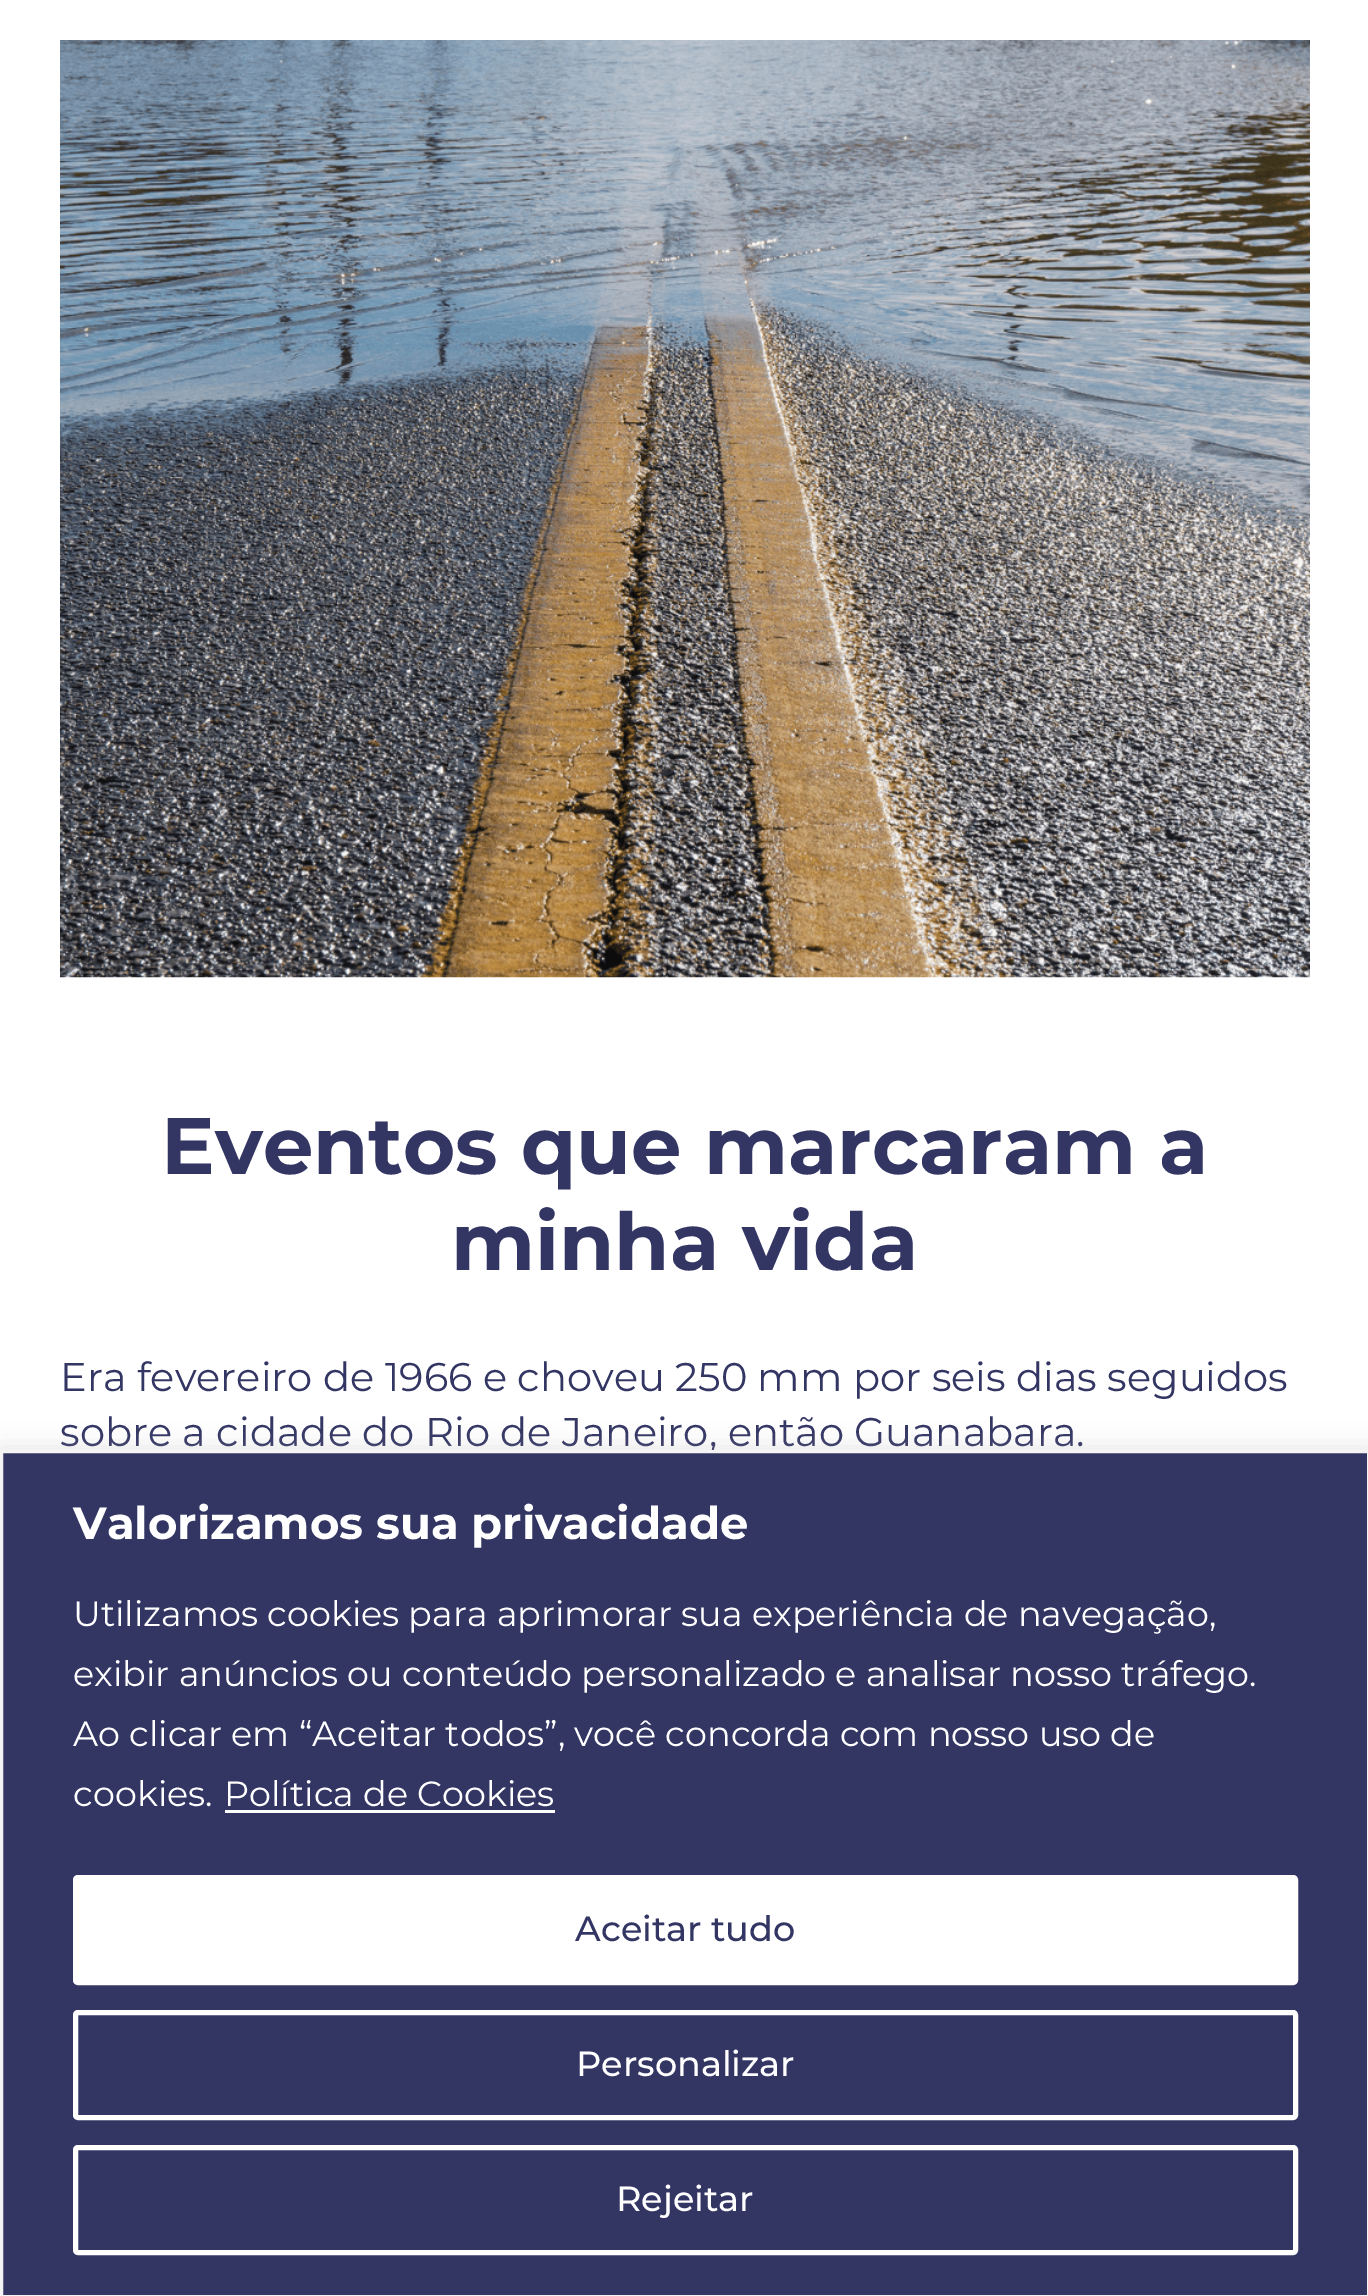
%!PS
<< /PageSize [1368 2296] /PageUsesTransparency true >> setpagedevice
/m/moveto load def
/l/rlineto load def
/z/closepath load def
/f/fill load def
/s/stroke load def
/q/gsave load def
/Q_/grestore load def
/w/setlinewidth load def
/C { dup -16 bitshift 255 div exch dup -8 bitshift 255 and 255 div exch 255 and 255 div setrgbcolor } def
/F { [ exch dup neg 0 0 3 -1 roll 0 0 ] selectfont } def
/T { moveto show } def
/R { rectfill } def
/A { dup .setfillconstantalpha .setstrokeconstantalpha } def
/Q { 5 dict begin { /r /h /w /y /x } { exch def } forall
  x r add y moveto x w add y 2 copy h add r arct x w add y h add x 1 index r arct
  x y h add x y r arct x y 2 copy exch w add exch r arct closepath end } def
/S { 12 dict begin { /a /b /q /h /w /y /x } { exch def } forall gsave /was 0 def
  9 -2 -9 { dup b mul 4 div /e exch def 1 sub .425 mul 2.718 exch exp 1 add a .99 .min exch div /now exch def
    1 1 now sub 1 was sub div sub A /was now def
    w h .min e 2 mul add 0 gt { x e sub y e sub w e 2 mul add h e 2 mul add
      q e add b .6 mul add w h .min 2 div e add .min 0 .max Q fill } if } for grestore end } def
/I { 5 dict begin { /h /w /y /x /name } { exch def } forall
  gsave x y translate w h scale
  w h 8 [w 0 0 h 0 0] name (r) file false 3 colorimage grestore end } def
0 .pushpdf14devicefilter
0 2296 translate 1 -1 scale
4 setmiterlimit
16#FFFFFF C
0 0 1368 2296 R
(1.rgb) 60 40 1250 938 I
/Montserrat-Bold 80 F
16#333563 C
(Eventos que marcaram a) 161 1174 T
(minha vida) 451 1270 T
/Montserrat-Regular 40 F
(Era fevereiro de 1966 e choveu 250 mm por seis dias seguidos) 60 1391 T
(sobre a cidade do Rio de Janeiro, então Guanabara.) 60 1446 T
16#ACABAB C
0 1448 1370 847 0 12.5 .3 S
16#333563 C
1.5 1451.5 m 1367 0 l 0 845 l -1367 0 l z q f Q_
16#F4F4F4 C
3 w
s
/Montserrat-Bold 45 F
16#FFFFFF C
(Valorizamos sua privacidade) 73 1539 T
/Montserrat-Regular 35 F
(Utilizamos cookies para aprimorar sua experiência de navegação,) 73 1626 T
(exibir anúncios ou conteúdo personalizado e analisar nosso tráfego.) 73 1686 T
(Ao clicar em “Aceitar todos”, você concorda com nosso uso de) 73 1746 T
(cookies.) 73 1806 T
(Política de Cookies) 224 1806 T
225 1810 330 3 R
75.5 1877.5 1220 105 2.5 Q q f Q_
5 w
s
/Montserrat-Medium 35 F
16#333563 C
(Aceitar tudo) 575 1941 T
16#FFFFFF C
75.5 2012.5 1220 105 2.5 Q s
(Personalizar) 576 2076 T
75.5 2147.5 1220 105 2.5 Q s
(Rejeitar) 616 2211 T
.poppdf14devicefilter showpage
